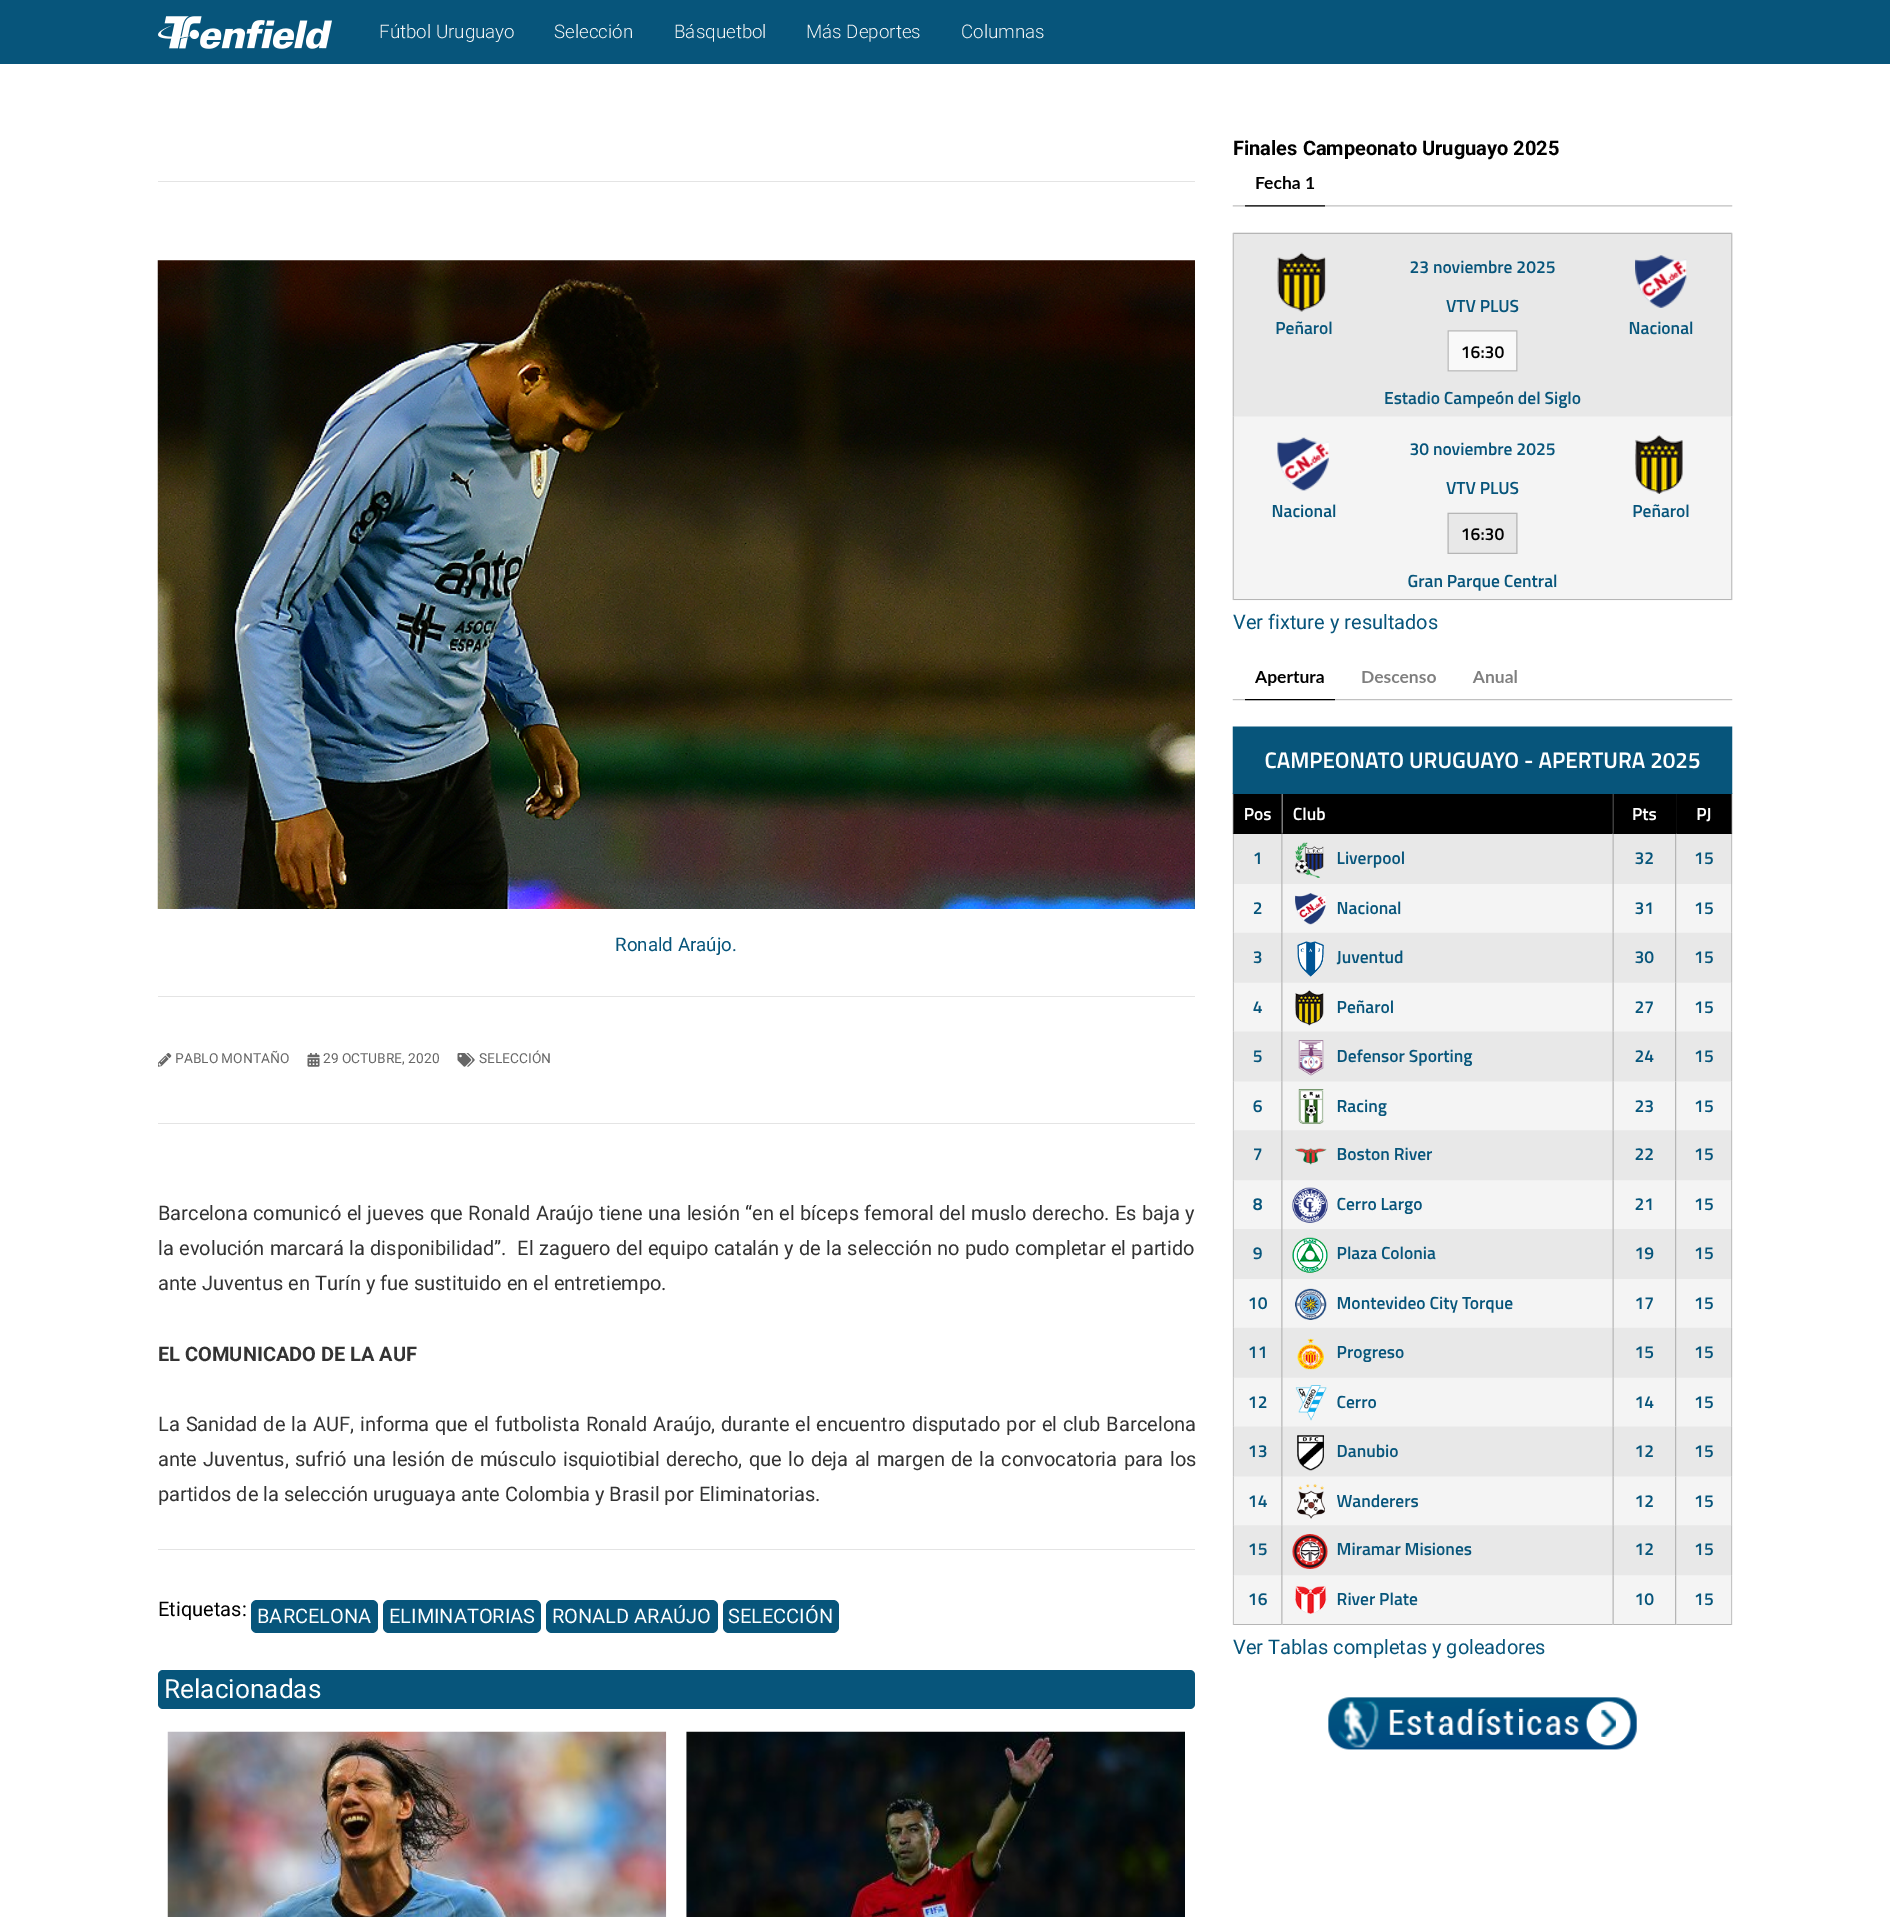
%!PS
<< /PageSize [1890 1917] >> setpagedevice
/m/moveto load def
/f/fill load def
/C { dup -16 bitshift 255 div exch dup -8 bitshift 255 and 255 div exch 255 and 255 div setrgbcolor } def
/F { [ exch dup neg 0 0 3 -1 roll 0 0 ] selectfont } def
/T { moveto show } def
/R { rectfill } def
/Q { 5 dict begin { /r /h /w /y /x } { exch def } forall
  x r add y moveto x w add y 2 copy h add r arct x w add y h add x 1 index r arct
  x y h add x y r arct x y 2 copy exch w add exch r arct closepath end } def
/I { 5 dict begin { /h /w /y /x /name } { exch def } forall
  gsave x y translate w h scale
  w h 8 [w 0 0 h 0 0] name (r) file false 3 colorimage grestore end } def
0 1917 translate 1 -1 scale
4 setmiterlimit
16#FFFFFF C
0 0 1890 1917 R
16#07557B C
0 0 1890 64 R
(1.rgb) 158 16 174 33 I
/Roboto-Light 18.75 F
16#F5F5F5 C
(Fútbol Uruguayo) 379 38 T
(Selección) 554 38 T
(Básquetbol) 674 38 T
(Más Deportes) 806 38 T
(Columnas) 961 38 T
16#E4E4E4 C
158 181 1037 1 R
(2.rgb) 157 260 1038 649 I
/Roboto-Regular 18.75 F
16#07557B C
(Ronald Araújo.) 615 951 T
16#E4E4E4 C
158 996 1037 1 R
(3.rgb) 158 1053 14 14 I
/Roboto-Regular 13.75 F
16#666666 C
(PABLO MONTAÑO) 175 1063 T
(4.rgb) 307 1053 13 14 I
(29 OCTUBRE, 2020) 323 1063 T
(5.rgb) 457 1053 18 14 I
(SELECCIÓN) 479 1063 T
16#E4E4E4 C
158 1123 1037 1 R
/Roboto-Regular 20 F
16#333333 C
158 1220 m .5 0 32 (Barcelona comunicó el jueves que Ronald Araújo tiene una lesión “en el bíceps femoral del muslo derecho. Es baja y) widthshow
158 1255 m .3 0 32 (la evolución marcará la disponibilidad”.  El zaguero del equipo catalán y de la selección no pudo completar el partido) widthshow
(ante Juventus en Turín y fue sustituido en el entretiempo.) 158 1290 T
/Roboto-Bold 20 F
(EL COMUNICADO DE LA AUF) 158 1361 T
/Roboto-Regular 20 F
158 1431 m .9 0 32 (La Sanidad de la AUF, informa que el futbolista Ronald Araújo, durante el encuentro disputado por el club Barcelona) widthshow
158 1466 m 1.4 0 32 (ante Juventus, sufrió una lesión de músculo isquiotibial derecho, que lo deja al margen de la convocatoria para los) widthshow
(partidos de la selección uruguaya ante Colombia y Brasil por Eliminatorias.) 158 1501 T
16#E4E4E4 C
158 1549 1037 1 R
16#000000 C
(Etiquetas:) 158 1616 T
16#07557B C
251 1600 127 33 6 Q f
16#FFFFFF C
(BARCELONA) 257 1623 T
16#07557B C
383 1600 158 33 6 Q f
16#FFFFFF C
(ELIMINATORIAS) 389 1623 T
16#07557B C
546 1600 172 33 6 Q f
16#FFFFFF C
(RONALD ARAÚJO) 552 1623 T
16#07557B C
723 1600 116 33 6 Q f
16#FFFFFF C
(SELECCIÓN) 728 1623 T
16#07557B C
158 1670 1037 39 5 Q f
/Roboto-Regular 26.25 F
16#FFFFFF C
(Relacionadas) 164 1698 T
(6.rgb) 167 1731 500 186 I
(7.rgb) 686 1731 499 186 I
/Roboto-Bold 20 F
16#000000 C
(Finales Campeonato Uruguayo 2025) 1233 155 T
(8.rgb) 1232 176 501 425 I
/Roboto-Regular 20 F
16#07557B C
(Ver fixture y resultados) 1233 629 T
(9.rgb) 1232 670 501 955 I
(Ver Tablas completas y goleadores) 1233 1654 T
(10.rgb) 1328 1697 309 53 I
showpage
